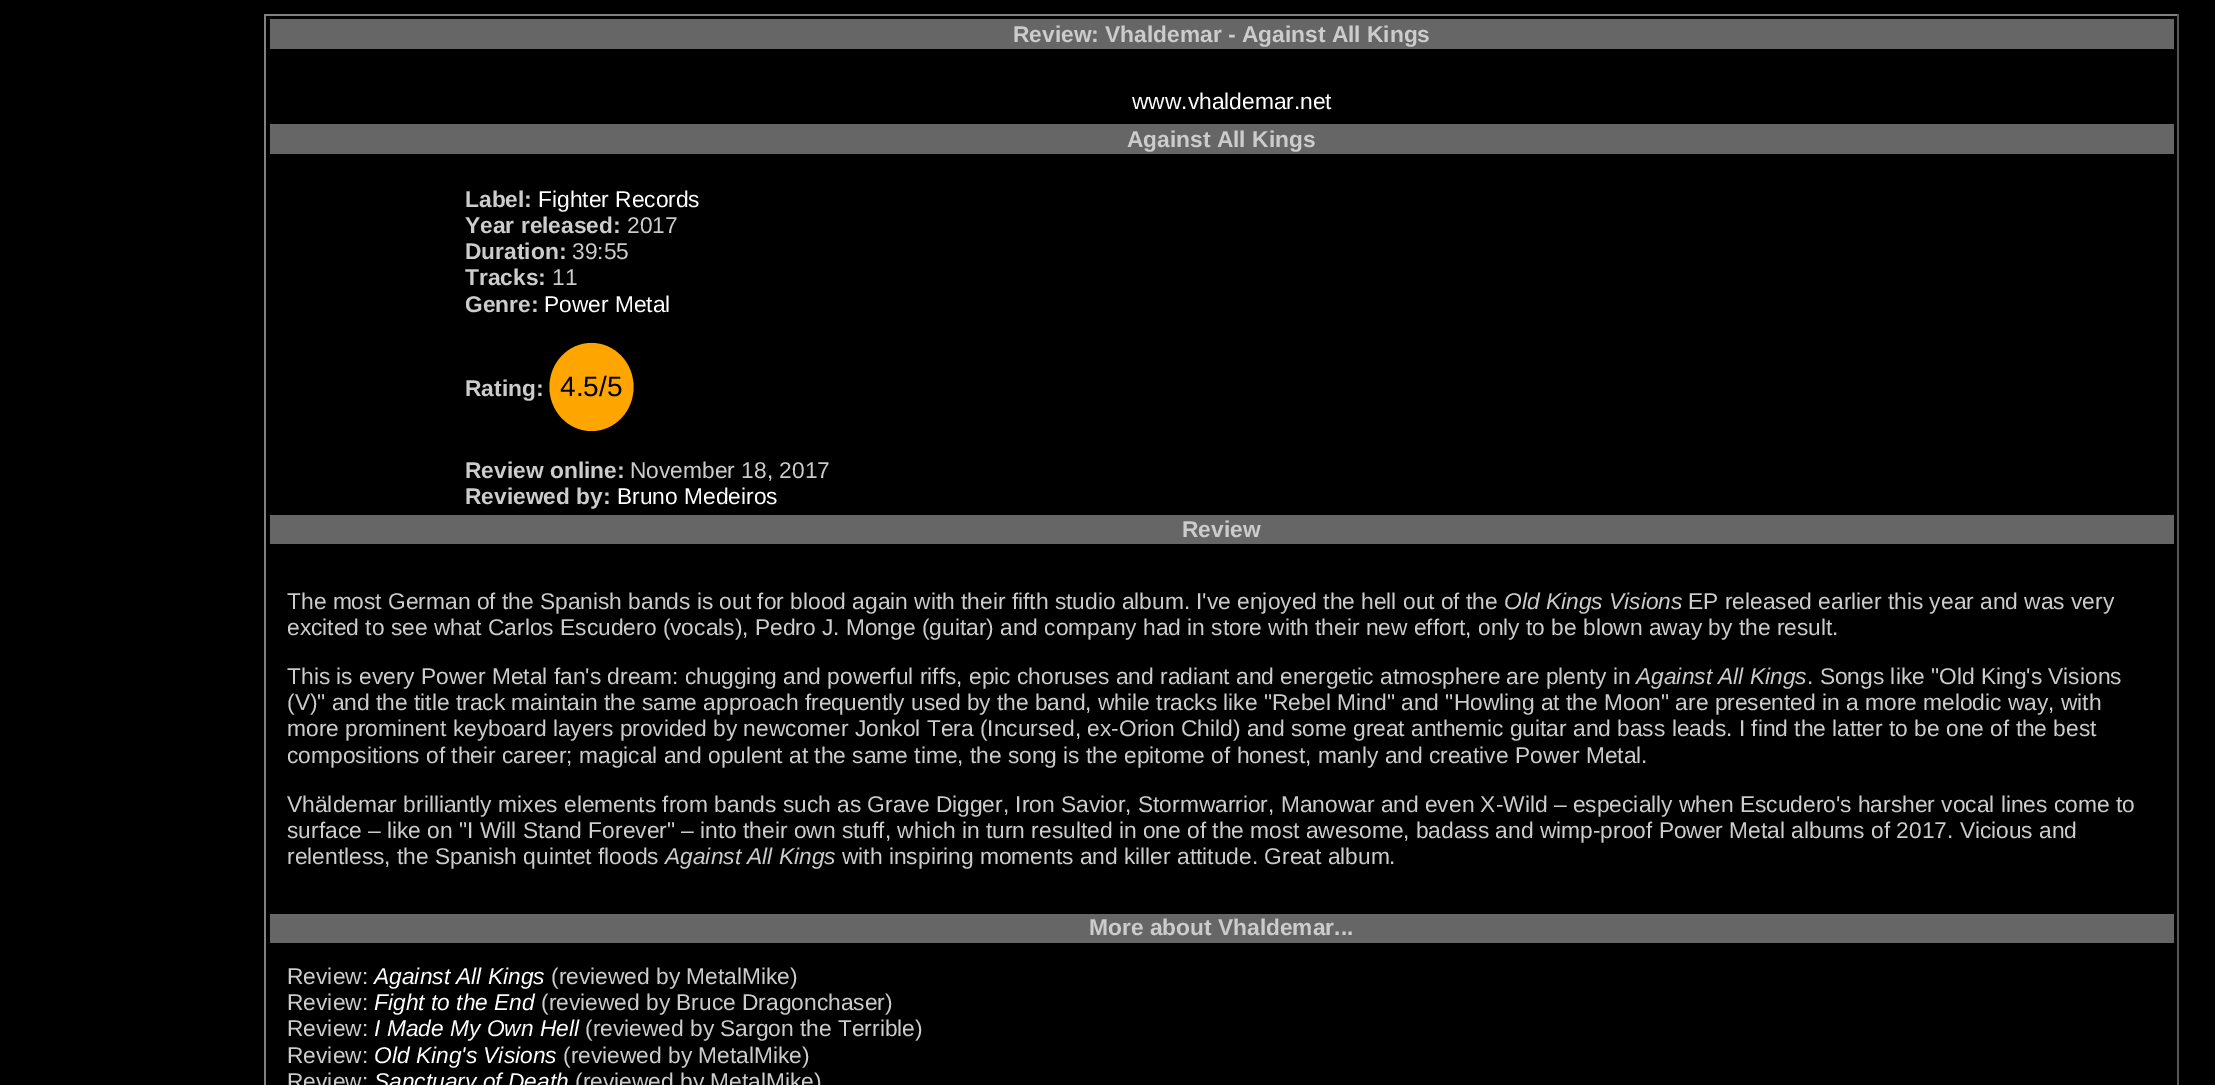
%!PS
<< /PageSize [2215 1085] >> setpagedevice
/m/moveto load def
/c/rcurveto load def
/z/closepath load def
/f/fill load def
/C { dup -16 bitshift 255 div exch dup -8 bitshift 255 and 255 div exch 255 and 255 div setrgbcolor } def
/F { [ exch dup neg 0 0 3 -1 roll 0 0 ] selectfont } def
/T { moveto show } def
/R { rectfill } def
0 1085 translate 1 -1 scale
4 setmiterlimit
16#000000 C
0 0 2215 1085 R
16#808080 C
264 14 1915 2 R
16#555555 C
2177 14 2 1071 R
16#808080 C
264 14 2 1071 R
16#666666 C
270 19 1904 30 R
/LiberationSans-Bold 22.75 F
16#CCCCCC C
(Review: Vhaldemar - Against All Kings) 1013 42 T
/LiberationSans-Regular 22.75 F
16#FFFFFF C
(www.vhaldemar.net) 1132 109 T
16#666666 C
270 124 1904 30 R
/LiberationSans-Bold 22.75 F
16#CCCCCC C
(Against All Kings) 1127 147 T
(Label:) 465 207 T
/LiberationSans-Regular 22.75 F
16#FFFFFF C
(Fighter Records) 538 207 T
/LiberationSans-Bold 22.75 F
16#CCCCCC C
(Year released:) 465 233 T
/LiberationSans-Regular 22.75 F
(2017) 627 233 T
/LiberationSans-Bold 22.75 F
(Duration:) 465 259 T
/LiberationSans-Regular 22.75 F
(39:55) 572 259 T
/LiberationSans-Bold 22.75 F
(Tracks:) 465 285 T
/LiberationSans-Regular 22.75 F
(11) 552 285 T
/LiberationSans-Bold 22.75 F
(Genre:) 465 312 T
/LiberationSans-Regular 22.75 F
16#FFFFFF C
(Power Metal) 544 312 T
/LiberationSans-Bold 22.75 F
16#CCCCCC C
(Rating:) 465 396 T
16#FFA500 C
591.5 343 m 23 0 42 19.5 42 44 c 0 24.5 -19 44 -42 44 c -23 0 -42 -19.5 -42 -44 c 0 -24.5 19 -44 42 -44 c z f
/LiberationSans-Regular 28 F
16#000000 C
(4.5/5) 560 396 T
/LiberationSans-Bold 22.75 F
16#CCCCCC C
(Review online:) 465 478 T
/LiberationSans-Regular 22.75 F
(November 18, 2017) 630 478 T
/LiberationSans-Bold 22.75 F
(Reviewed by:) 465 504 T
/LiberationSans-Regular 22.75 F
16#FFFFFF C
(Bruno Medeiros) 617 504 T
16#666666 C
270 515 1904 29 R
/LiberationSans-Bold 22.75 F
16#CCCCCC C
(Review) 1182 537 T
/LiberationSans-Regular 22.75 F
(The most German of the Spanish bands is out for blood again with their fifth studio album. I've enjoyed the hell out of the) 287 609 T
/LiberationSans-Italic 22.75 F
(Old Kings Visions) 1504 609 T
/LiberationSans-Regular 22.75 F
(EP released earlier this year and was very) 1688 609 T
(excited to see what Carlos Escudero \(vocals\), Pedro J. Monge \(guitar\) and company had in store with their new effort, only to be blown away by the result.) 287 635 T
(This is every Power Metal fan's dream: chugging and powerful riffs, epic choruses and radiant and energetic atmosphere are plenty in) 287 684 T
/LiberationSans-Italic 22.75 F
(Against All Kings) 1636 684 T
/LiberationSans-Regular 22.75 F
(. Songs like "Old King's Visions) 1807 684 T
(\(V\)" and the title track maintain the same approach frequently used by the band, while tracks like "Rebel Mind" and "Howling at the Moon" are presented in a more melodic way, with) 287 710 T
(more prominent keyboard layers provided by newcomer Jonkol Tera \(Incursed, ex-Orion Child\) and some great anthemic guitar and bass leads. I find the latter to be one of the best) 287 736 T
(compositions of their career; magical and opulent at the same time, the song is the epitome of honest, manly and creative Power Metal.) 287 763 T
(Vhäldemar brilliantly mixes elements from bands such as Grave Digger, Iron Savior, Stormwarrior, Manowar and even X-Wild – especially when Escudero's harsher vocal lines come to) 287 812 T
(surface – like on "I Will Stand Forever" – into their own stuff, which in turn resulted in one of the most awesome, badass and wimp-proof Power Metal albums of 2017. Vicious and) 287 838 T
(relentless, the Spanish quintet floods) 287 864 T
/LiberationSans-Italic 22.75 F
(Against All Kings) 665 864 T
/LiberationSans-Regular 22.75 F
(with inspiring moments and killer attitude. Great album.) 842 864 T
16#666666 C
270 914 1904 29 R
/LiberationSans-Bold 22.75 F
16#CCCCCC C
(More about Vhaldemar...) 1089 935 T
/LiberationSans-Regular 22.75 F
(Review:) 287 984 T
/LiberationSans-Italic 22.75 F
16#FFFFFF C
(Against All Kings) 374 984 T
/LiberationSans-Regular 22.75 F
16#CCCCCC C
(\(reviewed by MetalMike\)) 551 984 T
(Review:) 287 1010 T
/LiberationSans-Italic 22.75 F
16#FFFFFF C
(Fight to the End) 374 1010 T
/LiberationSans-Regular 22.75 F
16#CCCCCC C
(\(reviewed by Bruce Dragonchaser\)) 541 1010 T
(Review:) 287 1036 T
/LiberationSans-Italic 22.75 F
16#FFFFFF C
(I Made My Own Hell) 374 1036 T
/LiberationSans-Regular 22.75 F
16#CCCCCC C
(\(reviewed by Sargon the Terrible\)) 585 1036 T
(Review:) 287 1063 T
/LiberationSans-Italic 22.75 F
16#FFFFFF C
(Old King's Visions) 374 1063 T
/LiberationSans-Regular 22.75 F
16#CCCCCC C
(\(reviewed by MetalMike\)) 563 1063 T
(Review:) 287 1089 T
/LiberationSans-Italic 22.75 F
16#FFFFFF C
(Sanctuary of Death) 374 1089 T
/LiberationSans-Regular 22.75 F
16#CCCCCC C
(\(reviewed by MetalMike\)) 575 1089 T
showpage
